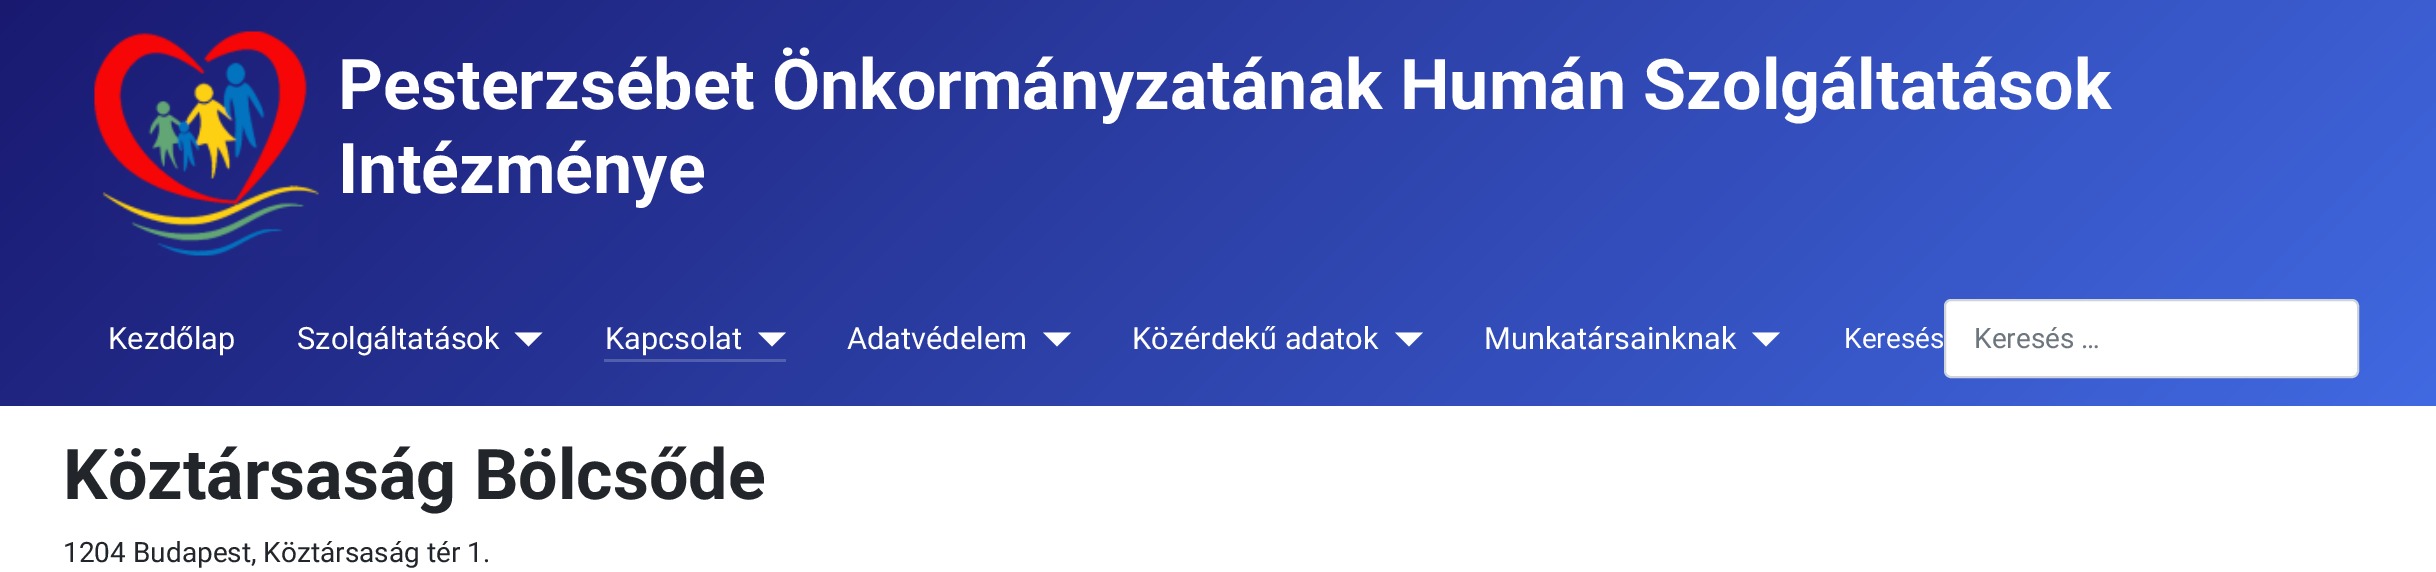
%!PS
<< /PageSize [2436 572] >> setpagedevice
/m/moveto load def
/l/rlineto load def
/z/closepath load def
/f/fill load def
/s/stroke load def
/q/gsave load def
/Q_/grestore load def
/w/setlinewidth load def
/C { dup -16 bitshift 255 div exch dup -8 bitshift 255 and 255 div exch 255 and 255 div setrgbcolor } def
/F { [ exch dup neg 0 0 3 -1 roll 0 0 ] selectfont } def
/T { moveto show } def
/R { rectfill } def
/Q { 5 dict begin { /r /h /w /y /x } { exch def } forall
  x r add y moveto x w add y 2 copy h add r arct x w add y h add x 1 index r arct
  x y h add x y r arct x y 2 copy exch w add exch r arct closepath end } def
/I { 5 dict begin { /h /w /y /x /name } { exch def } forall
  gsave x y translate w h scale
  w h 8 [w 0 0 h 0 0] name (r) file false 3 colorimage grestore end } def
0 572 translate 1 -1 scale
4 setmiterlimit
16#FFFFFF C
0 0 2436 572 R
q 0 0 m 2436 0 l 0 406 l -2436 0 l z clip newpath
<< /ShadingType 2 /ColorSpace /DeviceRGB /Coords [507 -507 1929 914] /Extend [true true] /Function << /FunctionType 2 /Domain [0 1] /C0 [.098 .098 .439] /C1 [.255 .412 .882] /N 1 >> >> shfill Q_
q 604 359 m 182 0 l 0 3 l -182 0 l z clip newpath
<< /ShadingType 2 /ColorSpace /DeviceRGB /Coords [507 -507 1929 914] /Extend [true true] /Function << /FunctionType 2 /Domain [0 1] /C0 [.278 .278 .553] /C1 [.404 .529 .906] /N 1 >> >> shfill Q_
(1.rgb) 94 31 225 225 I
/Roboto-Bold 70 F
(Pesterzsébet Önkormányzatának Humán Szolgáltatások) 338 109 T
(Intézménye) 338 193 T
/Roboto-Regular 30.75 F
(Kezdőlap) 108 349 T
(Szolgáltatások) 297 349 T
514.5 332.5 m 28 0 l -14 14 l z f
(Kapcsolat) 605 349 T
758 332.5 m 28 0 l -14 14 l z f
(Adatvédelem) 847 349 T
1043 332.5 m 28 0 l -14 14 l z f
(Közérdekű adatok) 1132 349 T
1395 332.5 m 28 0 l -14 14 l z f
(Munkatársainknak) 1484 349 T
1752 332.5 m 28 0 l -14 14 l z f
/Roboto-Regular 28 F
(Keresés) 1844 348 T
1945 300 413 77 6 Q q f Q_
16#CED4DA C
2 w
s
16#6D757E C
(Keresés …) 1974 348 T
/Roboto-Bold 70 F
16#22262A C
(Köztársaság Bölcsőde) 63 499 T
/Roboto-Regular 28 F
(1204 Budapest, Köztársaság tér 1.) 63 562 T
showpage
